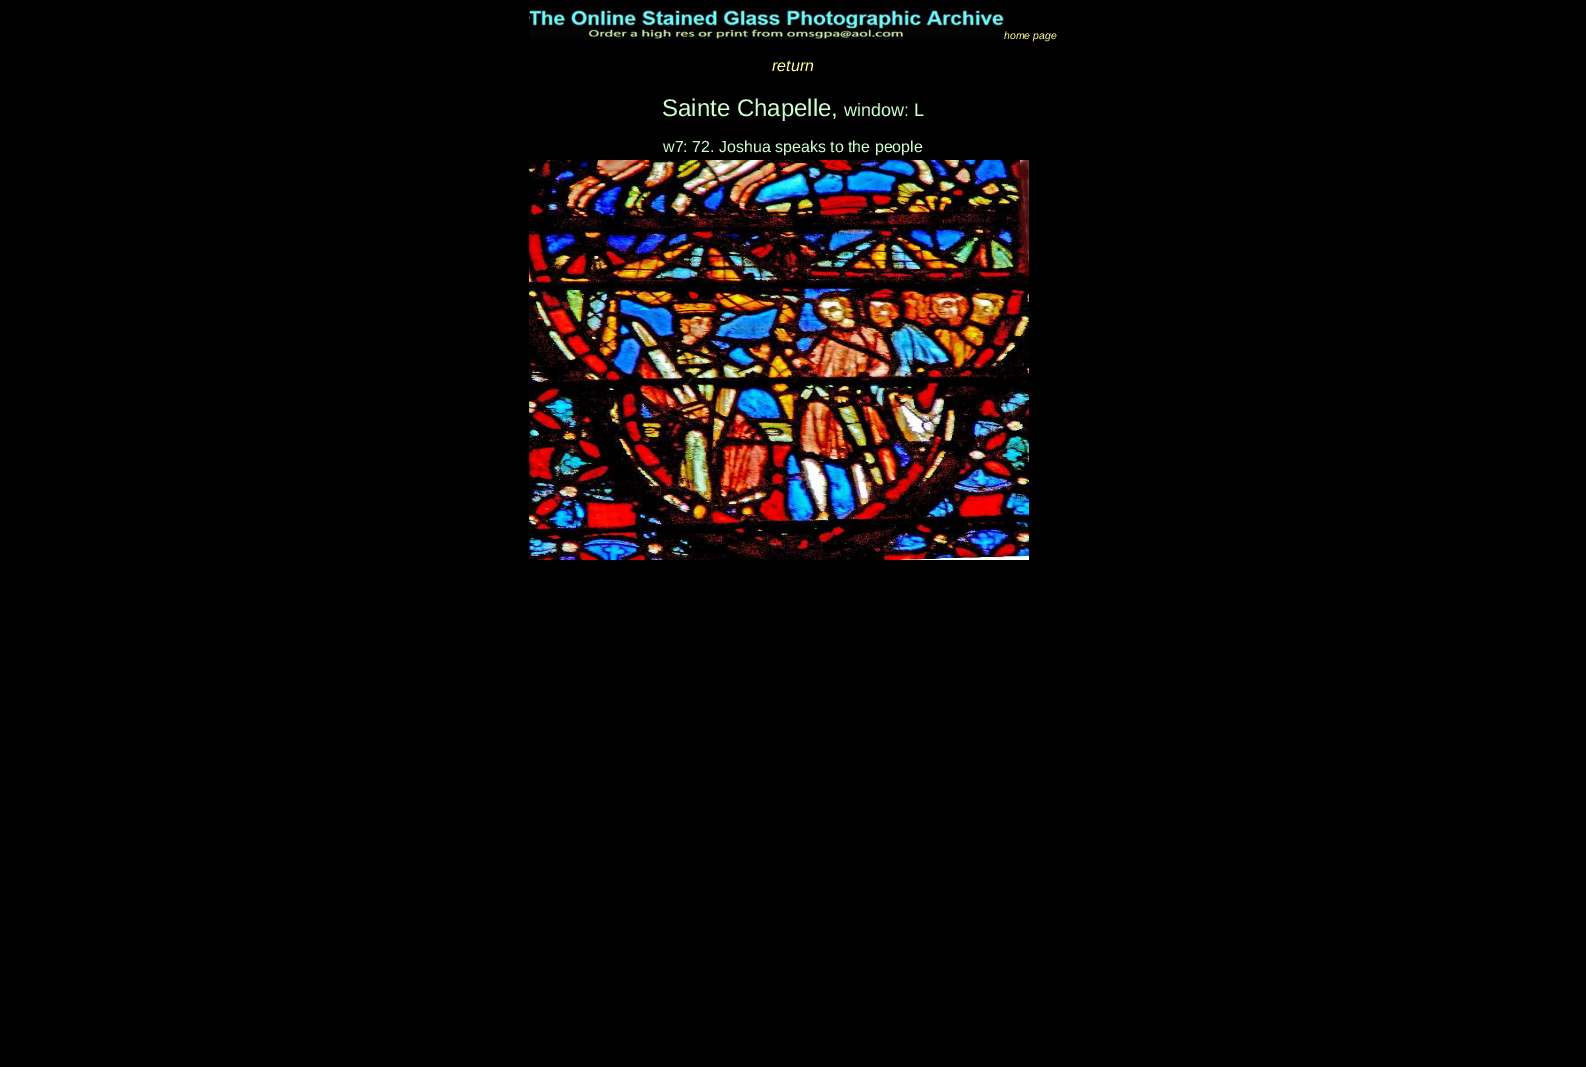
%!PS
<< /PageSize [1586 1067] >> setpagedevice
/C { dup -16 bitshift 255 div exch dup -8 bitshift 255 and 255 div exch 255 and 255 div setrgbcolor } def
/F { [ exch dup neg 0 0 3 -1 roll 0 0 ] selectfont } def
/T { moveto show } def
/R { rectfill } def
/I { 5 dict begin { /h /w /y /x /name } { exch def } forall
  gsave x y translate w h scale
  w h 8 [w 0 0 h 0 0] name (r) file false 3 colorimage grestore end } def
0 1067 translate 1 -1 scale
4 setmiterlimit
16#000000 C
0 0 1586 1067 R
(1.rgb) 529 8 475 31 I
/LiberationSans-Italic 10.5 F
16#FFFF99 C
(home page) 1004 39 T
/LiberationSans-Italic 16 F
(return) 772 71 T
/LiberationSans-Regular 24 F
16#CCFFCC C
(Sainte Chapelle,) 662 116 T
/LiberationSans-Regular 18 F
(window: L) 844 116 T
/LiberationSans-Regular 16 F
(w7: 72. Joshua speaks to the people) 663 152 T
(2.rgb) 529 160 500 400 I
showpage
